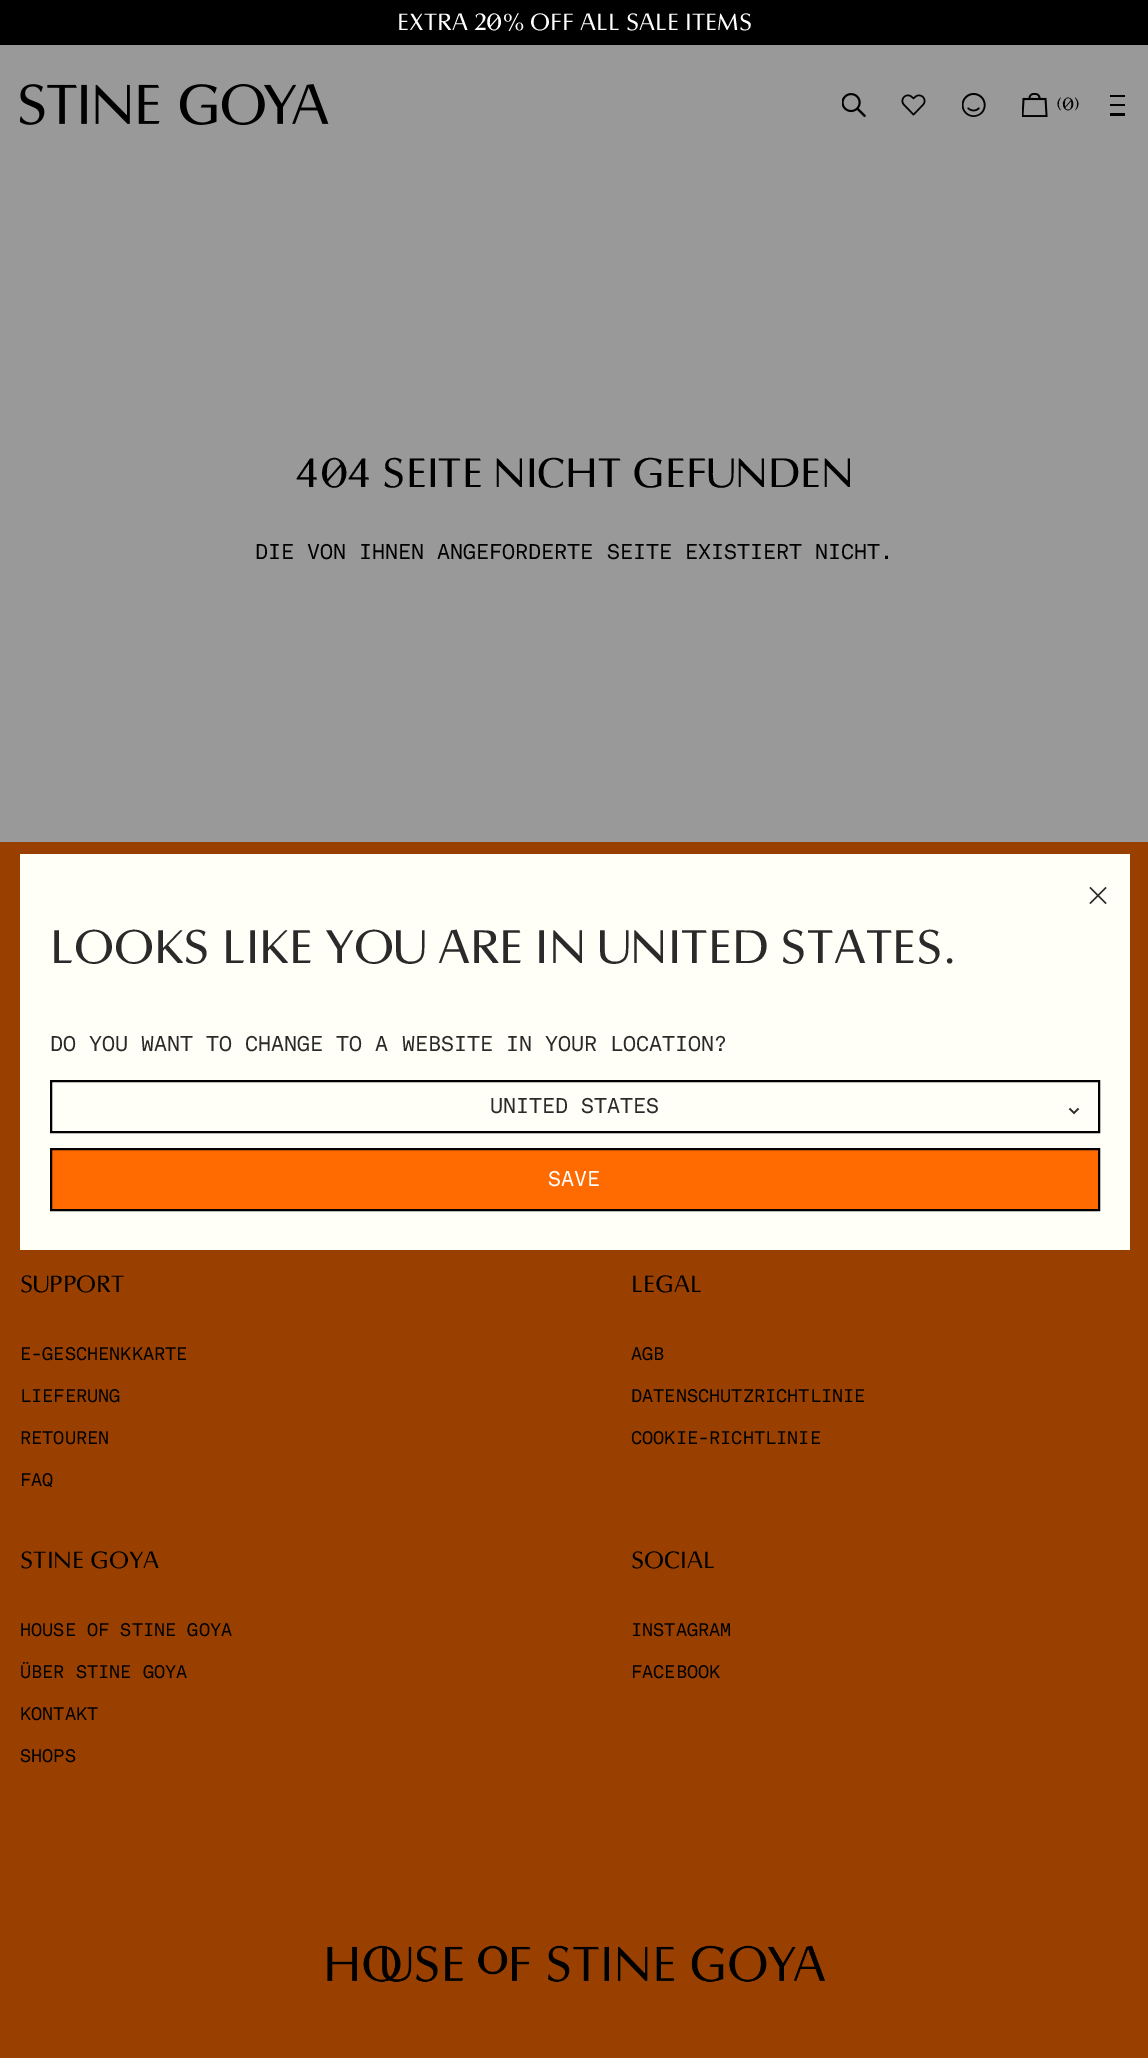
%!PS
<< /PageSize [1148 2058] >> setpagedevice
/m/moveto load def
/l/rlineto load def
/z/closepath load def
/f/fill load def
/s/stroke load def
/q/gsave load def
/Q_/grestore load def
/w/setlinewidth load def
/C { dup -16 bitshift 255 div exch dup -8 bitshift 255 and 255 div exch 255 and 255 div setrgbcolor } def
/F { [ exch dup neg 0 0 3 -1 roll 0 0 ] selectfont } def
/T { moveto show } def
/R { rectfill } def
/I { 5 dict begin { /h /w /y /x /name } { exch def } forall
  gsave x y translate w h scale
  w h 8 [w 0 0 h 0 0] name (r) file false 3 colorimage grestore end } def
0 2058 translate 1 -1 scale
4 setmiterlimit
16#999999 C
0 0 1148 2058 R
16#000000 C
0 0 1148 45 R
/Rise-Regular 24 F
16#FFFFFF C
(EXTRA 20% OFF ALL SALE ITEMS) 397 30 T
(1.rgb) 20 84 309 42 I
(2.rgb) 842 93 24 24 I
(3.rgb) 901 94 25 22 I
(4.rgb) 962 93 24 24 I
(5.rgb) 1022 93 26 24 I
/Rise-Regular 18 F
16#000000 C
(\(0\)) 1056 110 T
1110 95 15 2 R
1110 104 15 2 R
1110 113 15 3 R
16#994000 C
0 842 1148 1216 R
16#FFFEF7 C
20 854 1110 396 R
(6.rgb) 1089 886 18 19 I
/Rise-Regular 48 F
16#2A2A2A C
(LOOKS LIKE YOU ARE IN UNITED STATES.) 50 963 T
/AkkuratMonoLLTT-Regular 21 F
(DO YOU WANT TO CHANGE TO A WEBSITE IN YOUR LOCATION?) 50 1051 T
16#000000 C
2 w
51 1081 1048 51 rectstroke
16#2A2A2A C
(UNITED STATES) 490 1113 T
1.5 w
1078.5 1108.5 m -4.5 4.5 l -4.5 -4.5 l s
16#FF6B00 C
51 1149 m 1048 0 l 0 61 l -1048 0 l z q f Q_
16#000000 C
2 w
s
16#FFFFFF C
(SAVE) 548 1186 T
/Rise-Regular 42 F
16#000000 C
(404 SEITE NICHT GEFUNDEN) 296 487 T
/AkkuratMonoLLTT-Regular 21 F
(DIE VON IHNEN ANGEFORDERTE SEITE EXISTIERT NICHT.) 255 559 T
/Rise-Regular 24 F
(SUPPORT) 20 1292 T
/AkkuratMonoLLTT-Regular 18 F
(E-GESCHENKKARTE) 20 1360 T
(LIEFERUNG) 20 1402 T
(RETOUREN) 20 1444 T
(FAQ) 20 1486 T
/Rise-Regular 24 F
(LEGAL) 631 1292 T
/AkkuratMonoLLTT-Regular 18 F
(AGB) 631 1360 T
(DATENSCHUTZRICHTLINIE) 631 1402 T
(COOKIE-RICHTLINIE) 631 1444 T
/Rise-Regular 24 F
(STINE GOYA) 20 1568 T
/AkkuratMonoLLTT-Regular 18 F
(HOUSE OF STINE GOYA) 20 1636 T
(ÜBER STINE GOYA) 20 1678 T
(KONTAKT) 20 1720 T
(SHOPS) 20 1762 T
/Rise-Regular 24 F
(SOCIAL) 631 1568 T
/AkkuratMonoLLTT-Regular 18 F
(INSTAGRAM) 631 1636 T
(FACEBOOK) 631 1678 T
(7.rgb) 327 1945 498 37 I
showpage
